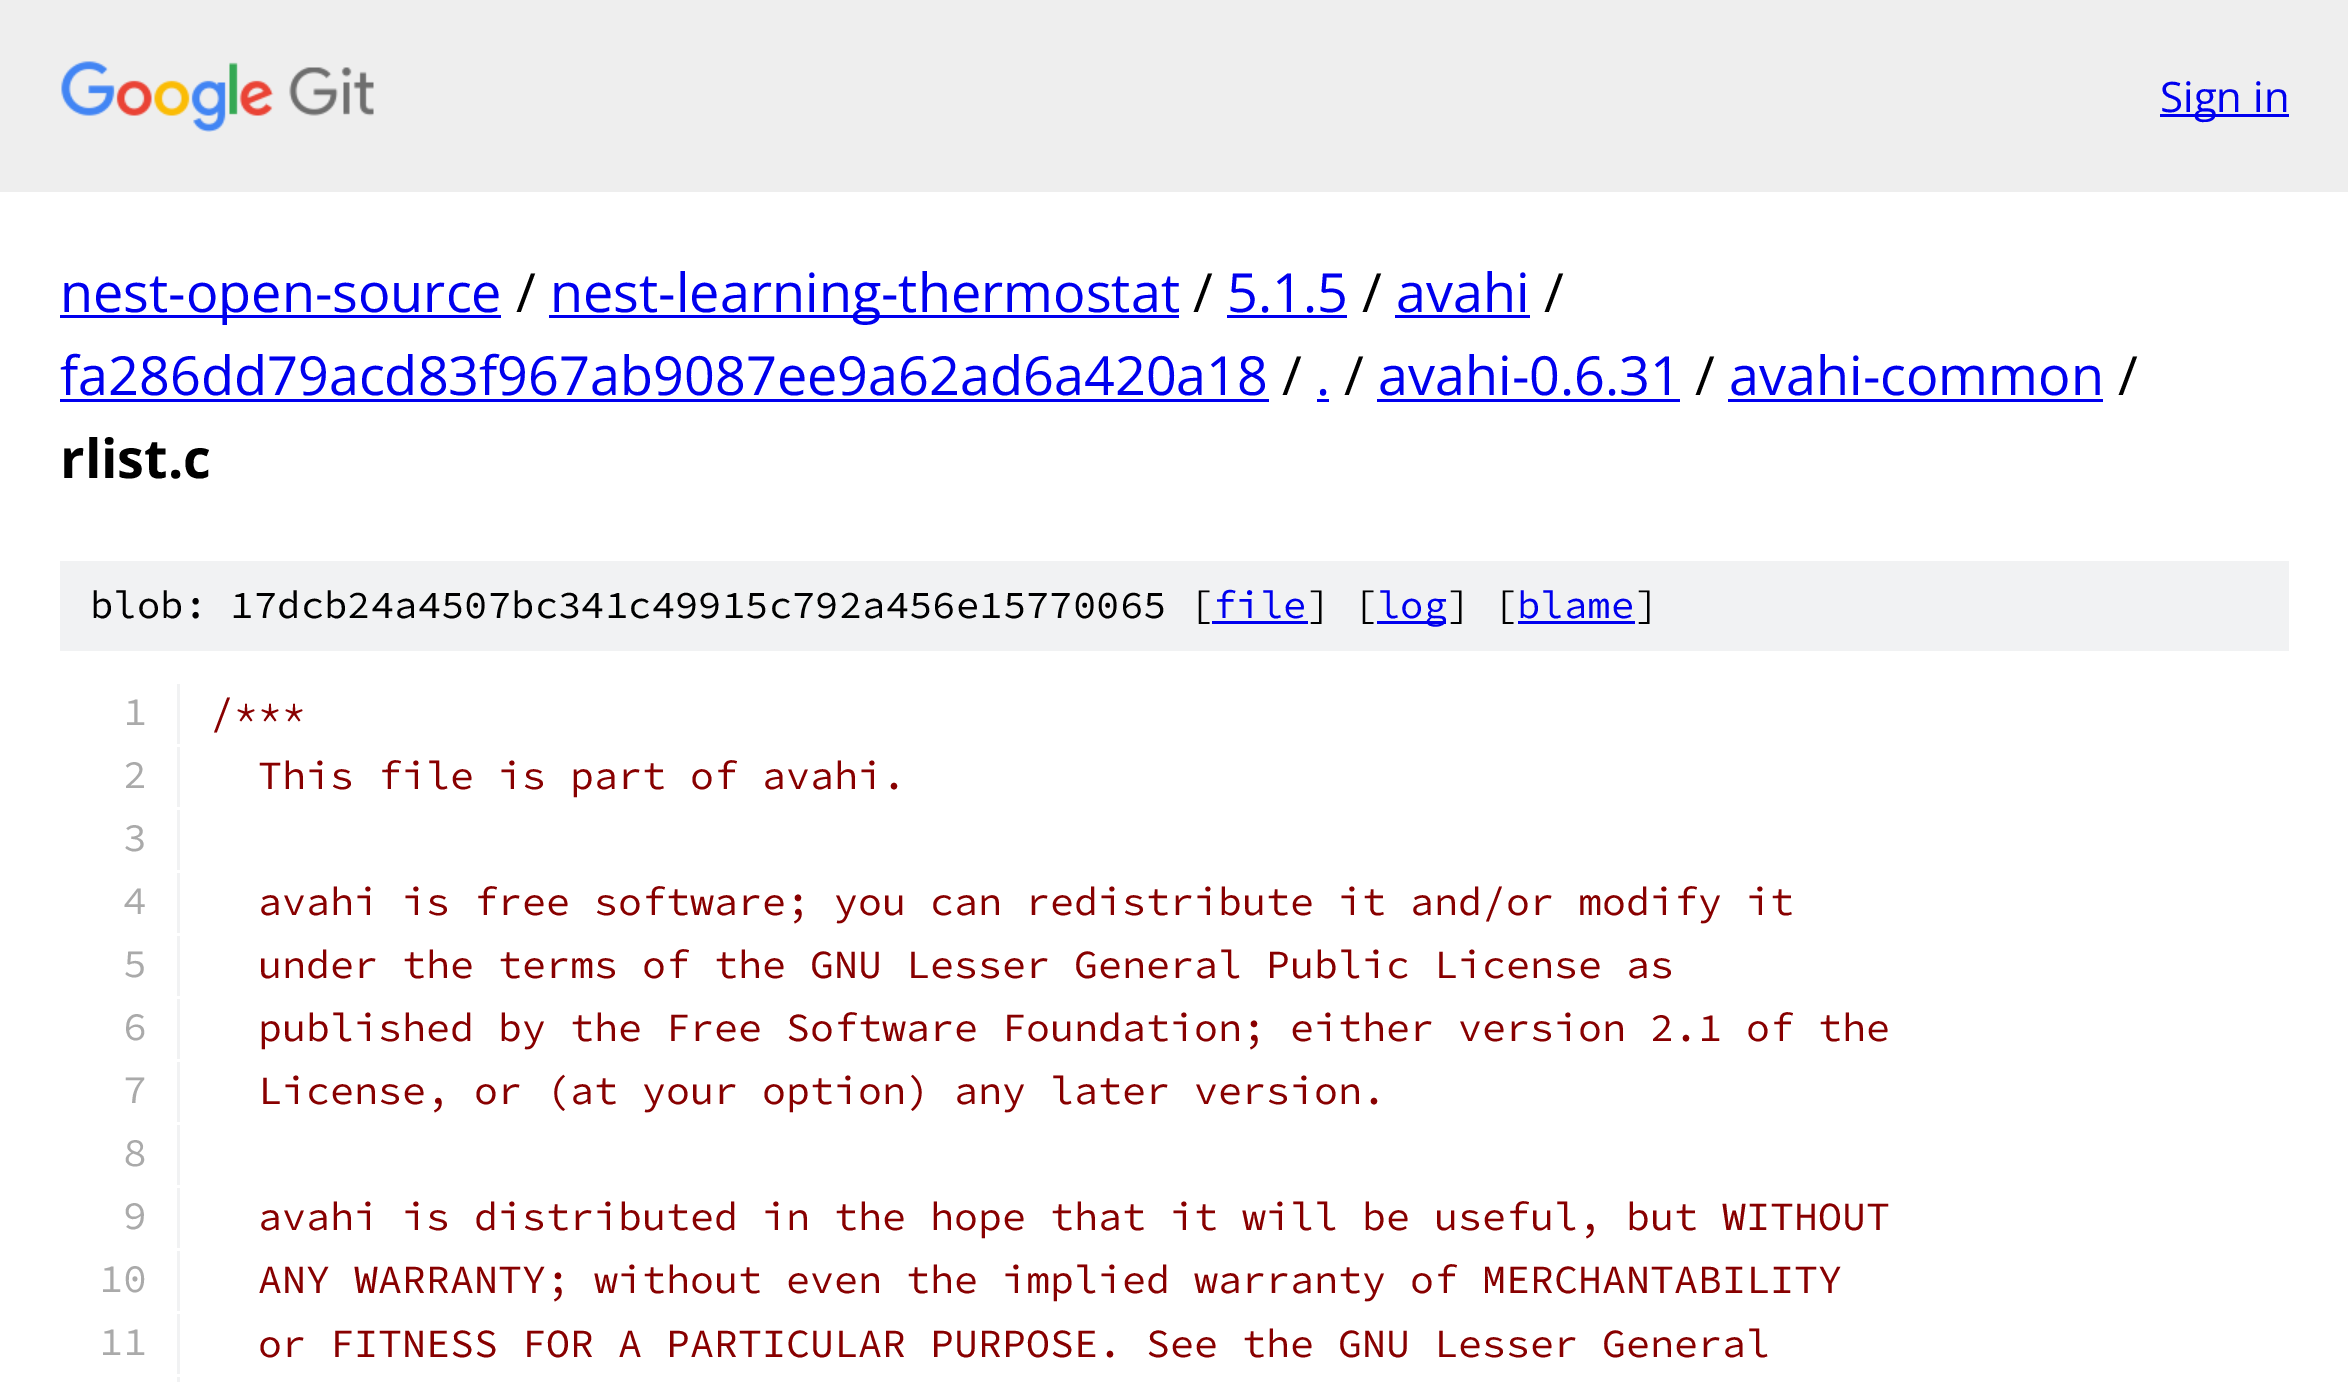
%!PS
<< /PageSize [2348 1382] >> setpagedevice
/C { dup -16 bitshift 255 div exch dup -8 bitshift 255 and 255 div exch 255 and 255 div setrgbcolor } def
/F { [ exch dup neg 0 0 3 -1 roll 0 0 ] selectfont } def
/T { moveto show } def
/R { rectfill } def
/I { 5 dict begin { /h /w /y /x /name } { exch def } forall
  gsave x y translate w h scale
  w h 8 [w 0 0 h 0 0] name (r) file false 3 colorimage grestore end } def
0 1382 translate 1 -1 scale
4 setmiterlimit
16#FFFFFF C
0 0 2348 1382 R
16#EEEEEE C
0 0 2348 192 R
(1.rgb) 61 61 313 71 I
16#0000EE C
2160 114 129 3 R
/OpenSans-Regular 42 F
(Sign in) 2160 112 T
60 315 441 3 R
/OpenSans-Regular 54 F
(nest-open-source) 60 312 T
16#000000 C
(/) 516 312 T
16#0000EE C
549 315 630 3 R
(nest-learning-thermostat) 550 312 T
16#000000 C
(/) 1193 312 T
16#0000EE C
(5.1.5) 1227 312 T
1227 315 120 3 R
16#000000 C
(/) 1362 312 T
16#0000EE C
(avahi) 1396 312 T
1395 315 135 3 R
16#000000 C
(/) 1544 312 T
16#0000EE C
(fa286dd79acd83f967ab9087ee9a62ad6a420a18) 60 395 T
60 399 1209 3 R
16#000000 C
(/) 1282 395 T
16#0000EE C
(.) 1316 395 T
1317 399 12 3 R
16#000000 C
(/) 1344 395 T
16#0000EE C
(avahi-0.6.31) 1378 395 T
1377 399 303 3 R
16#000000 C
(/) 1695 395 T
16#0000EE C
(avahi-common) 1729 395 T
1728 399 375 3 R
16#000000 C
(/) 2118 395 T
/OpenSans-Bold 54 F
(rlist.c) 60 478 T
16#F1F2F3 C
60 561 2229 90 R
/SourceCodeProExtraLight-ExtraLight 39 F
16#000000 C
(blob: 17dcb24a4507bc341c49915c792a456e15770065 [) 90 618 T
16#0000EE C
(file) 1213 618 T
1212 621 96 3 R
16#000000 C
(] [) 1307 618 T
16#0000EE C
1377 621 69 3 R
(log) 1377 618 T
16#000000 C
(] [) 1447 618 T
16#0000EE C
(blame) 1517 618 T
1518 621 117 3 R
16#000000 C
(]) 1635 618 T
16#F1F2F3 C
177 684 3 60 R
/SourceCodeProExtraLight-ExtraLight 40 F
16#AAAAAA C
(1) 123 725 T
16#880000 C
(/***) 210 726 T
16#F1F2F3 C
177 747 3 60 R
16#AAAAAA C
(2) 123 788 T
16#880000 C
(This file is part of avahi.) 258 789 T
16#F1F2F3 C
177 810 3 60 R
16#AAAAAA C
(3) 123 851 T
16#F1F2F3 C
177 873 3 60 R
16#AAAAAA C
(4) 123 914 T
16#880000 C
(avahi is free software; you can redistribute it and/or modify it) 258 915 T
16#F1F2F3 C
177 936 3 60 R
16#AAAAAA C
(5) 123 977 T
16#880000 C
(under the terms of the GNU Lesser General Public License as) 258 978 T
16#F1F2F3 C
177 999 3 60 R
16#AAAAAA C
(6) 123 1040 T
16#880000 C
(published by the Free Software Foundation; either version 2.1 of the) 258 1041 T
16#F1F2F3 C
177 1062 3 60 R
16#AAAAAA C
(7) 123 1103 T
16#880000 C
(License, or \(at your option\) any later version.) 258 1104 T
16#F1F2F3 C
177 1125 3 60 R
16#AAAAAA C
(8) 123 1166 T
16#F1F2F3 C
177 1188 3 60 R
16#AAAAAA C
(9) 123 1229 T
16#880000 C
(avahi is distributed in the hope that it will be useful, but WITHOUT) 258 1230 T
16#F1F2F3 C
177 1251 3 60 R
16#AAAAAA C
(10) 99 1292 T
16#880000 C
(ANY WARRANTY; without even the implied warranty of MERCHANTABILITY) 258 1293 T
16#F1F2F3 C
177 1314 3 60 R
16#AAAAAA C
(11) 99 1355 T
16#880000 C
(or FITNESS FOR A PARTICULAR PURPOSE. See the GNU Lesser General) 258 1357 T
16#F1F2F3 C
177 1377 3 5 R
showpage
